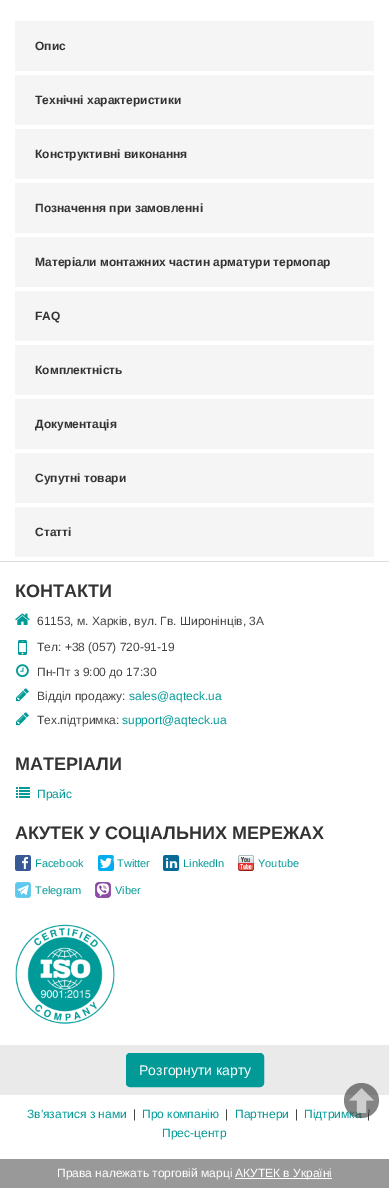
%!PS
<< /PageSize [389 1188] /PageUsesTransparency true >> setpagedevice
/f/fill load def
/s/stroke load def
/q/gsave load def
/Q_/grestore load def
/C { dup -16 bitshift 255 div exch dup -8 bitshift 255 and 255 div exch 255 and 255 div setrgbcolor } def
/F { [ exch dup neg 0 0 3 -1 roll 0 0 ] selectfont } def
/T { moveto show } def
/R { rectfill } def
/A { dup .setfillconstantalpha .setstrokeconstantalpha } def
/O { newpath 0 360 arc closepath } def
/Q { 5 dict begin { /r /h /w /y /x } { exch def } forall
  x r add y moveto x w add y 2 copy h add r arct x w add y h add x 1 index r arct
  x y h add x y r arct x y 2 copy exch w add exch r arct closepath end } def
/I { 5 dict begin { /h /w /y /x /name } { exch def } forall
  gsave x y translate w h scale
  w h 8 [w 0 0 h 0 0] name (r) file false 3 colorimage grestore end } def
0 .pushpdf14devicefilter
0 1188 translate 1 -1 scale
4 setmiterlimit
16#FFFFFF C
0 0 389 1188 R
16#F5F5F5 C
15 21 359 50 R
/LiberationSans-Bold 12 F
16#333333 C
(Опис) 35 50 T
16#F5F5F5 C
15 75 359 50 R
16#333333 C
(Технічні характеристики) 35 104 T
16#F5F5F5 C
15 129 359 50 R
16#333333 C
(Конструктивні виконання) 35 158 T
16#F5F5F5 C
15 183 359 50 R
16#333333 C
(Позначення при замовленні) 35 212 T
16#F5F5F5 C
15 237 359 50 R
16#333333 C
(Матеріали монтажних частин арматури термопар) 35 266 T
16#F5F5F5 C
15 291 359 50 R
16#333333 C
(FAQ) 35 320 T
16#F5F5F5 C
15 345 359 50 R
16#333333 C
(Комплектність) 35 374 T
16#F5F5F5 C
15 399 359 50 R
16#333333 C
(Документація) 35 428 T
16#F5F5F5 C
15 453 359 50 R
16#333333 C
(Супутні товари) 35 482 T
16#F5F5F5 C
15 507 359 50 R
16#333333 C
(Статті) 35 536 T
16#DDDDDD C
0 561 389 1 R
/LiberationSans-Bold 18 F
16#333333 C
(КОНТАКТИ) 15 597 T
(1.rgb) 15 613 15 12 I
/LiberationSans-Regular 12 F
16#444444 C
(61153, м. Харків, вул. Гв. Широнінців, 3А) 37 625 T
(2.rgb) 18 640 9 15 I
(Тел: +38 \(057\) 720-91-19) 37 651 T
(3.rgb) 16 664 13 14 I
(Пн-Пт з 9:00 до 17:30) 37 676 T
(4.rgb) 16 688 13 14 I
(Відділ продажу:) 37 700 T
16#019A97 C
(sales@aqteck.ua) 129 700 T
(4.rgb) 16 712 13 14 I
16#444444 C
(Тех.підтримка:) 37 724 T
16#019A97 C
(support@aqteck.ua) 122 724 T
/LiberationSans-Bold 18 F
16#333333 C
(МАТЕРІАЛИ) 15 770 T
(5.rgb) 16 787 14 11 I
/LiberationSans-Regular 12 F
16#019A97 C
(Прайс) 37 798 T
/LiberationSans-Bold 18 F
16#333333 C
(АКУТЕК У СОЦІАЛЬНИХ МЕРЕЖАХ) 15 839 T
(6.rgb) 15 855 16 16 I
/LiberationSans-Regular 11 F
16#019A97 C
(Facebook) 35 867 T
(7.rgb) 97 855 17 16 I
(Twitter) 117 867 T
(8.rgb) 163 855 17 16 I
(LinkedIn) 183 867 T
(9.rgb) 238 855 16 16 I
(Youtube) 258 867 T
(10.rgb) 15 882 16 16 I
(Telegram) 35 894 T
(11.rgb) 95 882 16 16 I
(Viber) 115 894 T
(12.rgb) 15 924 100 100 I
16#EAEAEA C
0 1045 389 50 R
16#019A97 C
126.5 1053.5 137 33 3.5 Q q f Q_
s
/LiberationSans-Regular 14 F
16#FFFFFF C
(Розгорнути карту) 139 1075 T
/LiberationSans-Regular 12 F
16#019A97 C
(Зв'язатися з нами) 27 1118 T
16#444444 C
(|) 133 1118 T
16#019A97 C
(Про компанію) 142 1118 T
16#444444 C
(|) 225 1118 T
16#019A97 C
(Партнери) 235 1118 T
16#444444 C
(|) 295 1118 T
16#019A97 C
(Підтримка) 304 1118 T
16#444444 C
(|) 367 1118 T
16#019A97 C
(Прес-центр) 162 1137 T
16#999999 C
0 1159 389 29 R
16#FFFFFF C
(Права належать торговій марці) 57 1177 T
235 1178 97 1 R
(АКУТЕК в Україні) 235 1177 T
0.6 A
16#333333 C
361.5 1100.5 17.5 O f
1 A
(13.rgb) 349 1088 25 25 I
.poppdf14devicefilter showpage
